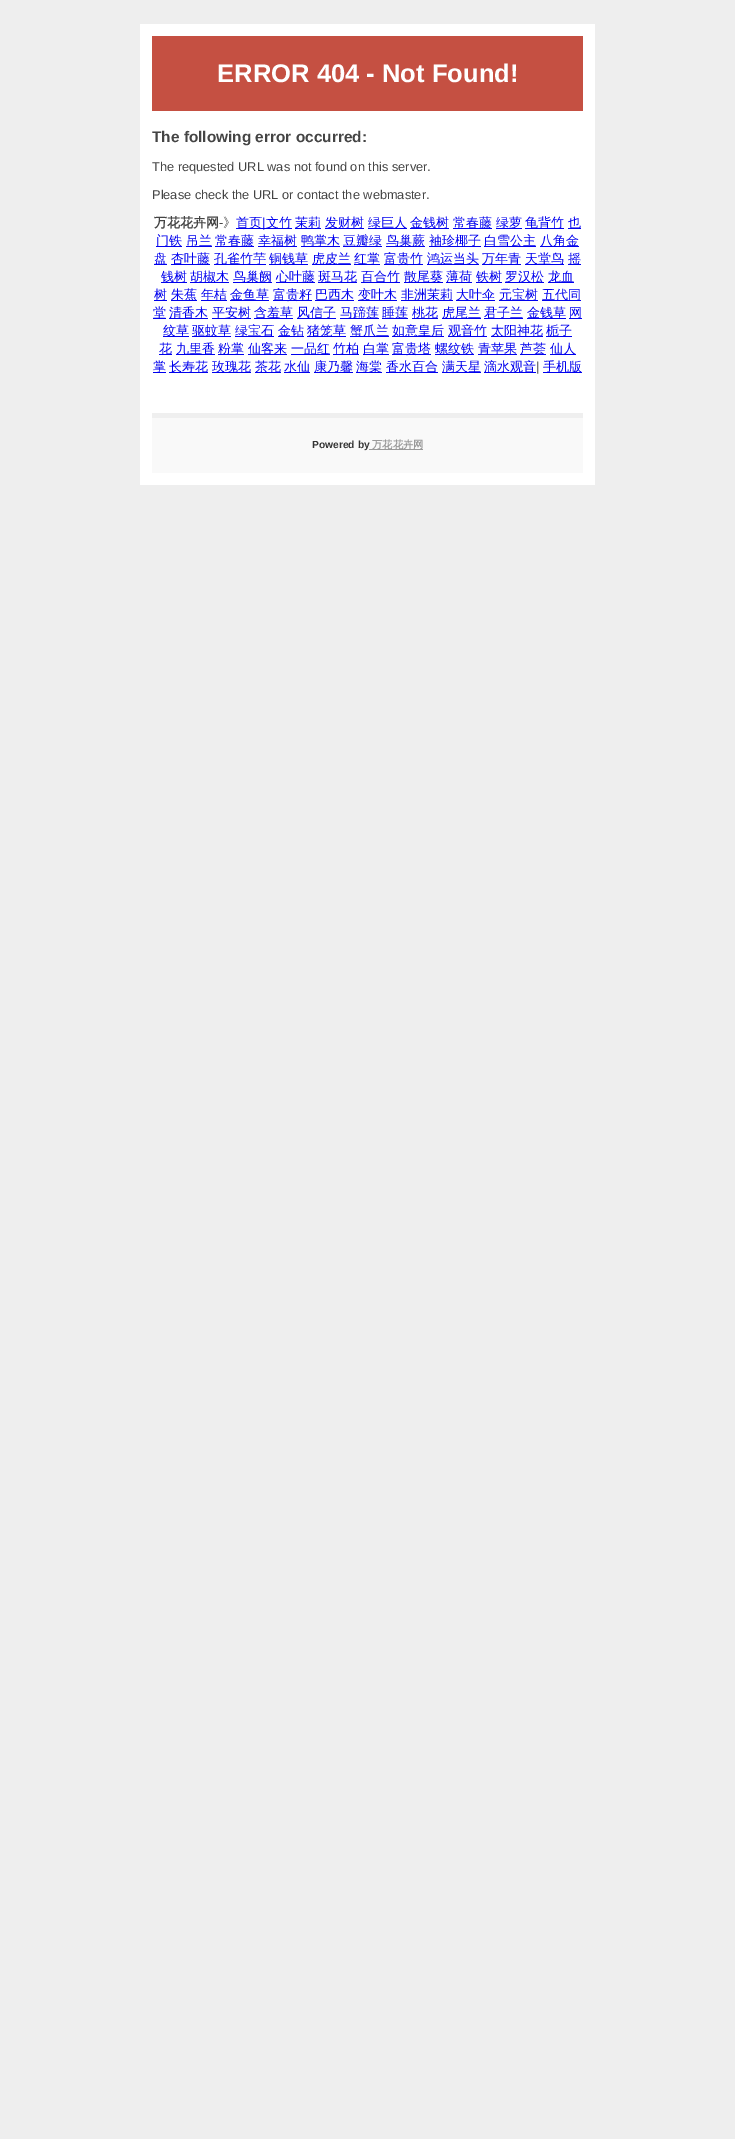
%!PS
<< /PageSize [735 2139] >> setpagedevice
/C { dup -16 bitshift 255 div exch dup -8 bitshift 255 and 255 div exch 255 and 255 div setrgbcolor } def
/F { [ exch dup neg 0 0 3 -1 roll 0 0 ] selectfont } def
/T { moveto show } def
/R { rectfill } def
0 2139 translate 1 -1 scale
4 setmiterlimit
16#EEEEEE C
0 0 735 2139 R
16#FFFFFF C
140 24 455 461 R
16#C55042 C
152 36 431 75 R
/LiberationSans-Bold 25.6 F
16#FFFFFF C
(ERROR 404 - Not Found!) 217 82 T
/LiberationSans-Bold 15.4 F
16#444444 C
(The following error occurred:) 152 142 T
/LiberationSans-Regular 12.8 F
(The requested URL was not found on this server.) 152 171 T
(Please check the URL or contact the webmaster.) 152 199 T
/WenQuanYiZenHei-Bold 13 F
(万花花卉网) 154 227 T
/LiberationSans-Regular 13 F
(-) 219 227 T
/WenQuanYiZenHei-Medium 13 F
(》) 223 227 T
16#0000EE C
236 228 56 1 R
(首页) 236 227 T
/LiberationSans-Regular 13 F
(|) 262 227 T
/WenQuanYiZenHei-Medium 13 F
(文竹) 266 227 T
295 228 26 1 R
(茉莉) 295 227 T
325 228 39 1 R
(发财树) 325 227 T
368 228 39 1 R
(绿巨人) 368 227 T
410 228 39 1 R
(金钱树) 410 227 T
453 228 39 1 R
(常春藤) 453 227 T
496 228 26 1 R
(绿萝) 496 227 T
525 228 39 1 R
(龟背竹) 525 227 T
568 228 13 1 R
(也) 568 227 T
156 246 26 1 R
(门铁) 156 245 T
186 246 26 1 R
(吊兰) 186 245 T
215 246 39 1 R
(常春藤) 215 245 T
258 246 39 1 R
(幸福树) 258 245 T
301 246 39 1 R
(鸭掌木) 301 245 T
343 246 39 1 R
(豆瓣绿) 343 245 T
386 246 39 1 R
(鸟巢蕨) 386 245 T
429 246 52 1 R
(袖珍椰子) 429 245 T
484 246 52 1 R
(白雪公主) 484 245 T
540 246 39 1 R
(八角金) 540 245 T
154 264 13 1 R
(盘) 154 263 T
171 264 39 1 R
(杏叶藤) 171 263 T
214 264 52 1 R
(孔雀竹芋) 214 263 T
269 264 39 1 R
(铜钱草) 269 263 T
312 264 39 1 R
(虎皮兰) 312 263 T
354 264 26 1 R
(红掌) 354 263 T
384 264 39 1 R
(富贵竹) 384 263 T
427 264 52 1 R
(鸿运当头) 427 263 T
482 264 39 1 R
(万年青) 482 263 T
525 264 39 1 R
(天堂鸟) 525 263 T
568 264 13 1 R
(摇) 568 263 T
161 282 26 1 R
(钱树) 161 281 T
190 282 39 1 R
(胡椒木) 190 281 T
233 282 39 1 R
(鸟巢阙) 233 281 T
276 282 39 1 R
(心叶藤) 276 281 T
318 282 39 1 R
(斑马花) 318 281 T
361 282 39 1 R
(百合竹) 361 281 T
404 282 39 1 R
(散尾葵) 404 281 T
446 282 26 1 R
(薄荷) 446 281 T
476 282 26 1 R
(铁树) 476 281 T
505 282 39 1 R
(罗汉松) 505 281 T
548 282 26 1 R
(龙血) 548 281 T
154 300 13 1 R
(树) 154 299 T
171 300 26 1 R
(朱蕉) 171 299 T
201 300 26 1 R
(年桔) 201 299 T
230 300 39 1 R
(金鱼草) 230 299 T
273 300 39 1 R
(富贵籽) 273 299 T
315 300 39 1 R
(巴西木) 315 299 T
358 300 39 1 R
(变叶木) 358 299 T
401 300 52 1 R
(非洲茉莉) 401 299 T
456 300 39 1 R
(大叶伞) 456 299 T
499 300 39 1 R
(元宝树) 499 299 T
542 300 39 1 R
(五代同) 542 299 T
153 318 13 1 R
(堂) 153 317 T
169 318 39 1 R
(清香木) 169 317 T
212 318 39 1 R
(平安树) 212 317 T
254 318 39 1 R
(含羞草) 254 317 T
297 318 39 1 R
(风信子) 297 317 T
340 318 39 1 R
(马蹄莲) 340 317 T
382 318 26 1 R
(睡莲) 382 317 T
412 318 26 1 R
(桃花) 412 317 T
442 318 39 1 R
(虎尾兰) 442 317 T
484 318 39 1 R
(君子兰) 484 317 T
527 318 39 1 R
(金钱草) 527 317 T
569 318 13 1 R
(网) 569 317 T
163 336 26 1 R
(纹草) 163 335 T
192 336 39 1 R
(驱蚊草) 192 335 T
235 336 39 1 R
(绿宝石) 235 335 T
278 336 26 1 R
(金钻) 278 335 T
307 336 39 1 R
(猪笼草) 307 335 T
350 336 39 1 R
(蟹爪兰) 350 335 T
392 336 52 1 R
(如意皇后) 392 335 T
448 336 39 1 R
(观音竹) 448 335 T
491 336 52 1 R
(太阳神花) 491 335 T
546 336 26 1 R
(栀子) 546 335 T
159 354 13 1 R
(花) 159 353 T
176 354 39 1 R
(九里香) 176 353 T
218 354 26 1 R
(粉掌) 218 353 T
248 354 39 1 R
(仙客来) 248 353 T
291 354 39 1 R
(一品红) 291 353 T
333 354 26 1 R
(竹柏) 333 353 T
363 354 26 1 R
(白掌) 363 353 T
392 354 39 1 R
(富贵塔) 392 353 T
435 354 39 1 R
(螺纹铁) 435 353 T
478 354 39 1 R
(青苹果) 478 353 T
520 354 26 1 R
(芦荟) 520 353 T
550 354 26 1 R
(仙人) 550 353 T
153 372 13 1 R
(掌) 153 371 T
169 372 39 1 R
(长寿花) 169 371 T
212 372 39 1 R
(玫瑰花) 212 371 T
255 372 26 1 R
(茶花) 255 371 T
284 372 26 1 R
(水仙) 284 371 T
314 372 39 1 R
(康乃馨) 314 371 T
356 372 26 1 R
(海棠) 356 371 T
386 372 52 1 R
(香水百合) 386 371 T
442 372 39 1 R
(满天星) 442 371 T
484 372 52 1 R
(滴水观音) 484 371 T
/LiberationSans-Regular 13 F
16#444444 C
(|) 536 371 T
16#0000EE C
543 372 39 1 R
/WenQuanYiZenHei-Medium 13 F
(手机版) 543 371 T
16#F9F9F9 C
152 418 431 55 R
16#EFEFEF C
152 413 431 5 R
/LiberationSans-Bold 10.25 F
16#333333 C
(Powered by) 312 448 T
16#999999 C
369 449 54 1 R
/WenQuanYiZenHei-Bold 10.25 F
(万花花卉网) 372 448 T
showpage
